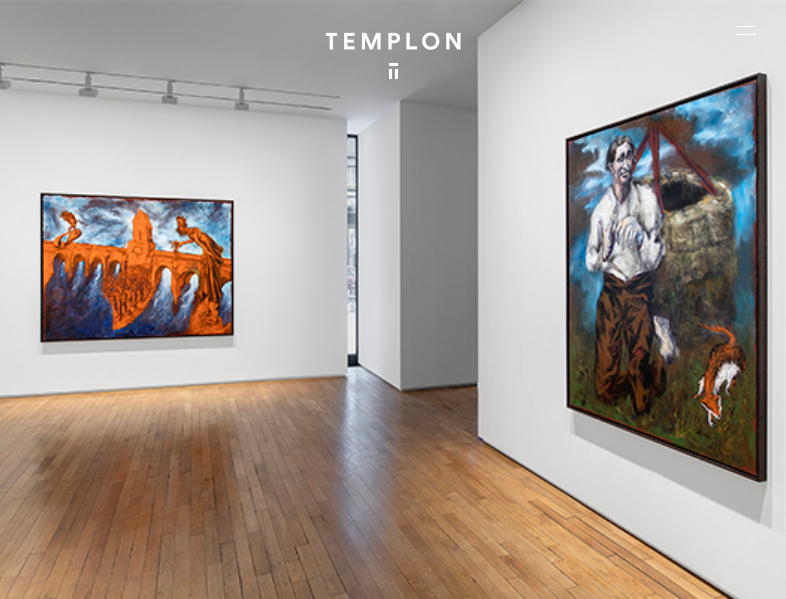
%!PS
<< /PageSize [786 599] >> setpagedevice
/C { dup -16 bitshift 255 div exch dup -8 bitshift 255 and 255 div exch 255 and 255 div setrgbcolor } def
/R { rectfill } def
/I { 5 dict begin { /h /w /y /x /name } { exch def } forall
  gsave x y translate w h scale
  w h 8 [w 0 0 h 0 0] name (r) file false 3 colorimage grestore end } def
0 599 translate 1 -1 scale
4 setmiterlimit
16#FFFFFF C
0 0 786 599 R
(1.rgb) 0 0 786 599 I
736 26 20 1 R
736 34 20 1 R
(2.rgb) 326 32 135 18 I
389 69 3 10 R
395 69 3 10 R
389 63 9 3 R
showpage
